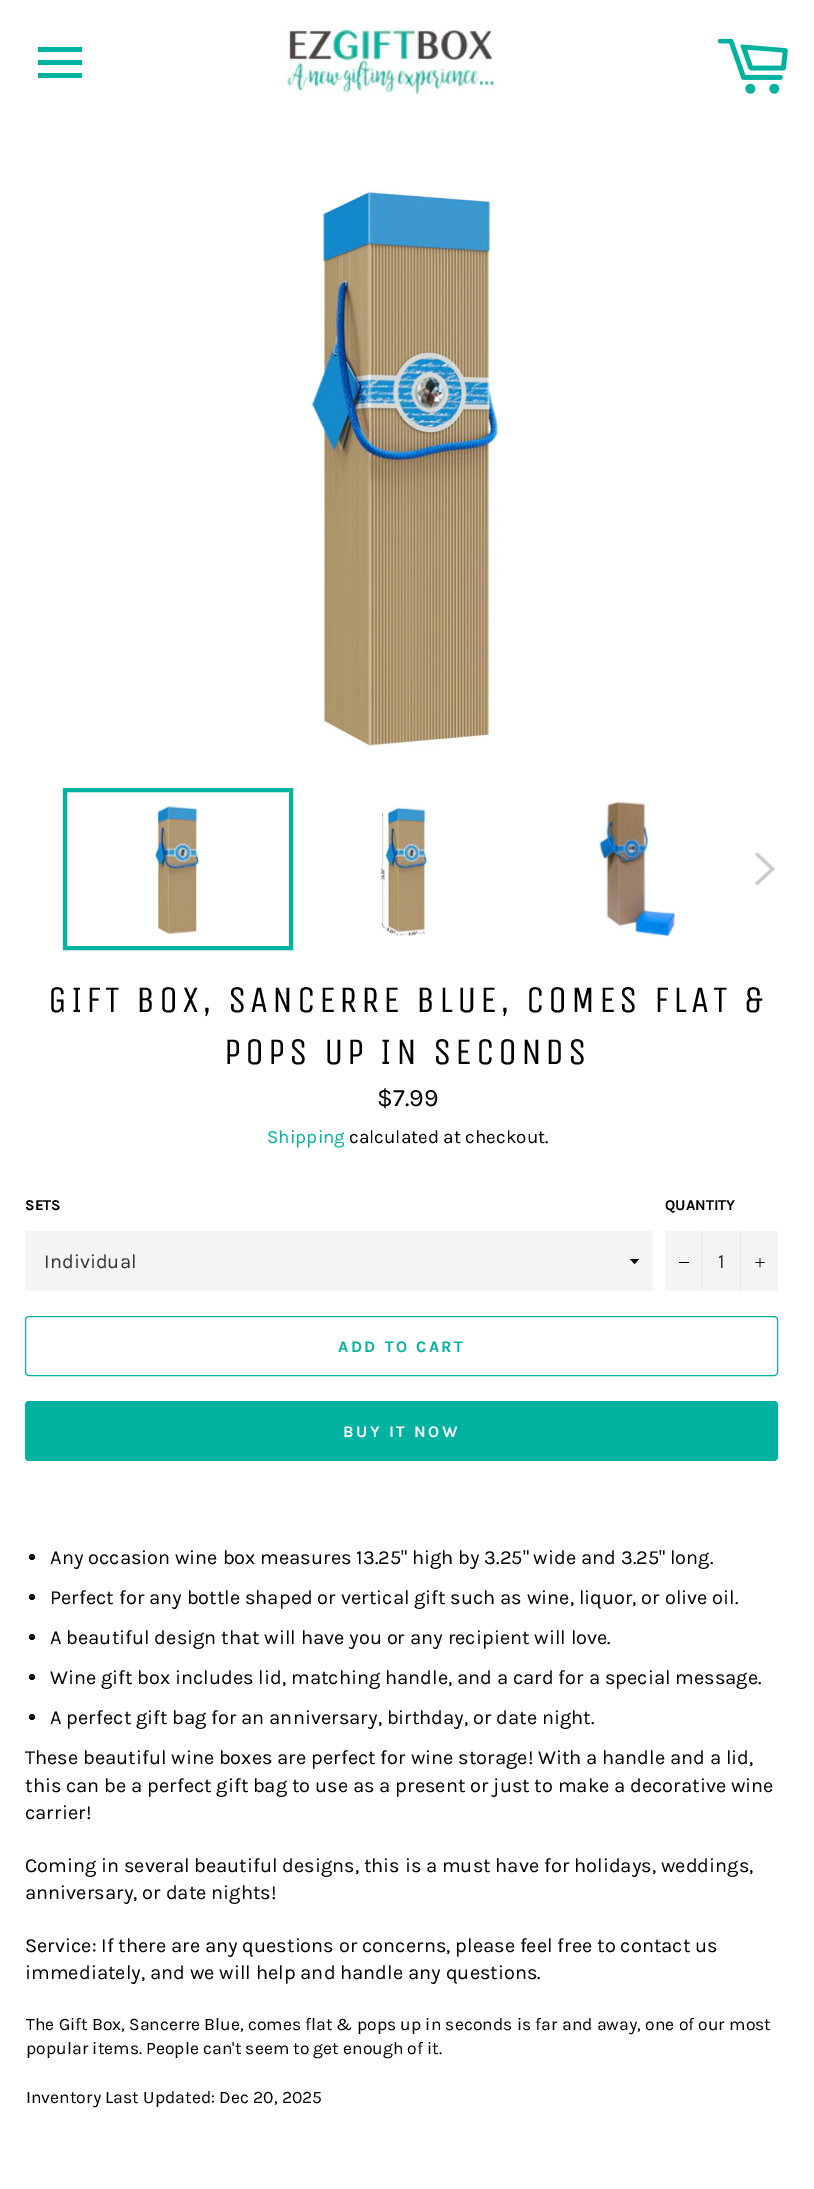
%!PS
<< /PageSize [814 2189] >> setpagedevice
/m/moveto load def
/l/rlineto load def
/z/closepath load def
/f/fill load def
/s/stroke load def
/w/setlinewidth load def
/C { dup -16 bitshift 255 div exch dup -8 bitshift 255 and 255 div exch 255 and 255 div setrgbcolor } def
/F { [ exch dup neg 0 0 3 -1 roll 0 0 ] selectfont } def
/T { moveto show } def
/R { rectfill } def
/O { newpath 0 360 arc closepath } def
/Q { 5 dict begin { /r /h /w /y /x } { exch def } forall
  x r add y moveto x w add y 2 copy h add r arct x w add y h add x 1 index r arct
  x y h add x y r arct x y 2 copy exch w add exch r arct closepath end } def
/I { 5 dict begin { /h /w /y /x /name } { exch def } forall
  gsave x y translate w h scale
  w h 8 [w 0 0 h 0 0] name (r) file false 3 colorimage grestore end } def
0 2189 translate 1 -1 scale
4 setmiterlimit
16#FFFFFF C
0 0 814 2189 R
16#01B2A0 C
38 60 m 44 0 l 0 5 l -44 0 l z 38 47 m 44 0 l 0 5 l -44 0 l z 38 73 m 44 0 l 0 5 l -44 0 l z f
(1.rgb) 280 25 220 71 I
(2.rgb) 717 38 71 56 I
(3.rgb) 311 189 189 558 I
(4.rgb) 152 806 48 129 I
4 w
65 790 226 158 rectstroke
(5.rgb) 381 807 48 129 I
(6.rgb) 599 801 77 136 I
16#CCCCCC C
755 854.5 m 2.5 -2 l 17.5 16.5 l -17.5 16 l -2.5 -2 l 15.5 -14 l z f
/UnicaOne-Regular 37.5 F
16#000000 C
48 1012 m 3.75 0 (GIFT BOX, SANCERRE BLUE, COMES FLAT &) ashow
224 1064 m 3.75 0 (POPS UP IN SECONDS) ashow
/Karla-Regular 25 F
($7.99) 377 1106 T
/Karla-Regular 18.75 F
16#01B2A0 C
(Shipping) 267 1143 T
16#000000 C
(calculated at checkout.) 349 1143 T
/Karla-Bold 15 F
(SETS) 25 1210 T
16#F4F4F4 C
25 1231 628 60 R
16#000000 C
630 1259 m 4.5 5 l 4.5 -5 l z f
/Karla-Regular 20 F
16#333333 C
(Individual) 44 1268 T
/Karla-Bold 15 F
16#000000 C
(QUANTITY) 665 1210 T
16#F4F4F4 C
665 1231 113 60 R
16#E7E7E7 C
701 1231 1 60 R
16#000000 C
679 1262 10 1 R
/Karla-Regular 20 F
16#333333 C
(1) 718 1268 T
16#E7E7E7 C
740 1231 1 60 R
(7.rgb) 755 1258 10 10 I
16#01B2A0 C
1 w
25.5 1316.5 752 59 3.5 Q s
/Karla-Bold 16.25 F
338 1352 m 2.5 0 (ADD TO CART) ashow
25 1401 753 60 4 Q f
16#FFFFFF C
343 1437 m 2.5 0 (BUY IT NOW) ashow
16#000000 C
32 1557 3 O f
/Karla-Regular 20 F
(Any occasion wine box measures 13.25" high by 3.25" wide and 3.25" long.) 50 1564 T
32 1597 3 O f
(Perfect for any bottle shaped or vertical gift such as wine, liquor, or olive oil.) 50 1604 T
32 1637 3 O f
(A beautiful design that will have you or any recipient will love.) 50 1644 T
32 1677 3 O f
(Wine gift box includes lid, matching handle, and a card for a special message.) 50 1684 T
32 1717 3 O f
(A perfect gift bag for an anniversary, birthday, or date night.) 50 1724 T
(These beautiful wine boxes are perfect for wine storage! With a handle and a lid,) 25 1764 T
(this can be a perfect gift bag to use as a present or just to make a decorative wine) 25 1792 T
(carrier!) 25 1819 T
(Coming in several beautiful designs, this is a must have for holidays, weddings,) 25 1872 T
(anniversary, or date nights!) 25 1899 T
(Service: If there are any questions or concerns, please feel free to contact us) 25 1952 T
(immediately, and we will help and handle any questions.) 25 1979 T
/Karla-Regular 17.5 F
(The Gift Box, Sancerre Blue, comes flat & pops up in seconds is far and away, one of our most) 26 2030 T
(popular items. People can't seem to get enough of it.) 26 2054 T
(Inventory Last Updated: Dec 20, 2025) 26 2103 T
showpage
